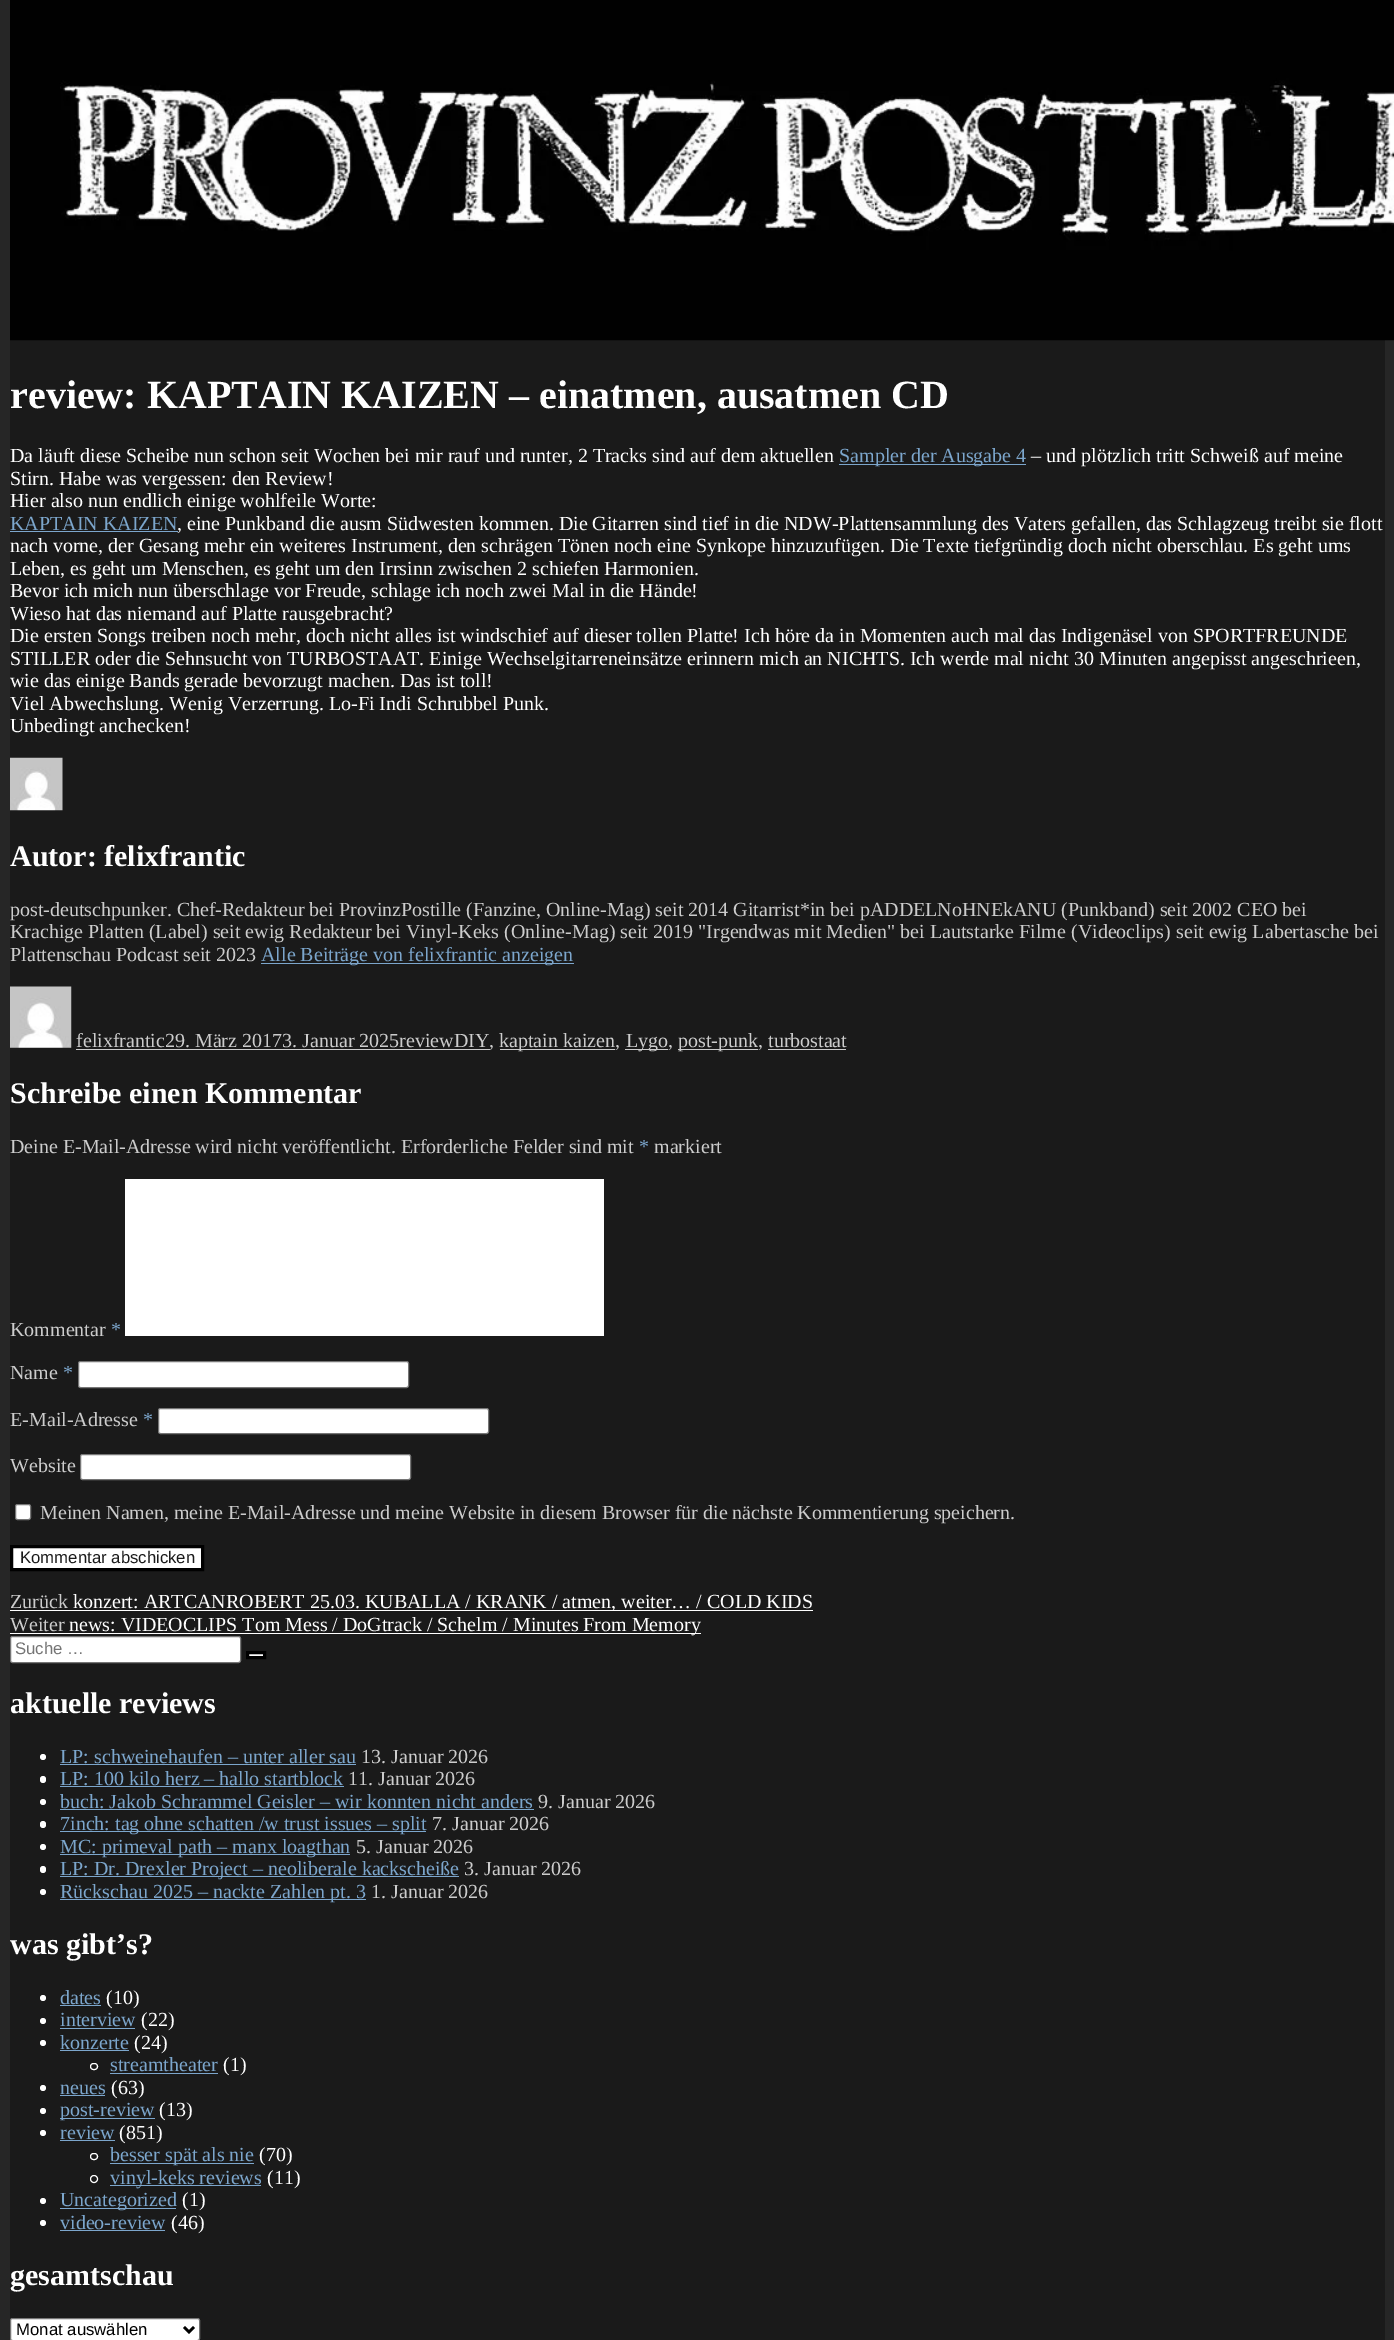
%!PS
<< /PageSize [1394 2340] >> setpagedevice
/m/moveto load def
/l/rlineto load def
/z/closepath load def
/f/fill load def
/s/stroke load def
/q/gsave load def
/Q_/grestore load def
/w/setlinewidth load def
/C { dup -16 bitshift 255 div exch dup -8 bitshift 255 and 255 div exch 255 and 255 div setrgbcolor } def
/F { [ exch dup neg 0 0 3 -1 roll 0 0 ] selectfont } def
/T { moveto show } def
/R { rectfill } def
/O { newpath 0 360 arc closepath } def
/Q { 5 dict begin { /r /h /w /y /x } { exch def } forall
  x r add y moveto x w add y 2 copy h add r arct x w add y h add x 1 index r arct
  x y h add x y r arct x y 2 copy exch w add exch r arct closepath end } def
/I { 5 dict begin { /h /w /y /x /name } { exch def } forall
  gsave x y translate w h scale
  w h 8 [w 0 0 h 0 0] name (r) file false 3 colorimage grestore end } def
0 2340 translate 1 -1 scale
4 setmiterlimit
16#262626 C
0 0 1394 2340 R
16#1A1A1A C
10 340 1375 2000 R
(1.rgb) 10 0 1384 341 I
/LiberationSerif-Bold 40 F
16#FFFFFF C
(review: KAPTAIN KAIZEN – einatmen, ausatmen CD) 10 408 T
/LiberationSerif-Regular 20 F
(Da läuft diese Scheibe nun schon seit Wochen bei mir rauf und runter, 2 Tracks sind auf dem aktuellen) 10 462 T
16#7CA6CC C
839 464 187 1 R
(Sampler der Ausgabe 4) 839 462 T
16#FFFFFF C
(– und plötzlich tritt Schweiß auf meine) 1031 462 T
(Stirn. Habe was vergessen: den Review!) 10 485 T
(Hier also nun endlich einige wohlfeile Worte:) 10 507 T
16#7CA6CC C
(KAPTAIN KAIZEN) 10 530 T
10 531 168 1 R
16#FFFFFF C
(, eine Punkband die ausm Südwesten kommen. Die Gitarren sind tief in die NDW-Plattensammlung des Vaters gefallen, das Schlagzeug treibt sie flott) 177 530 T
(nach vorne, der Gesang mehr ein weiteres Instrument, den schrägen Tönen noch eine Synkope hinzuzufügen. Die Texte tiefgründig doch nicht oberschlau. Es geht ums) 10 552 T
(Leben, es geht um Menschen, es geht um den Irrsinn zwischen 2 schiefen Harmonien.) 10 575 T
(Bevor ich mich nun überschlage vor Freude, schlage ich noch zwei Mal in die Hände!) 10 597 T
(Wieso hat das niemand auf Platte rausgebracht?) 10 620 T
(Die ersten Songs treiben noch mehr, doch nicht alles ist windschief auf dieser tollen Platte! Ich höre da in Momenten auch mal das Indigenäsel von SPORTFREUNDE) 10 642 T
(STILLER oder die Sehnsucht von TURBOSTAAT. Einige Wechselgitarreneinsätze erinnern mich an NICHTS. Ich werde mal nicht 30 Minuten angepisst angeschrieen,) 10 665 T
(wie das einige Bands gerade bevorzugt machen. Das ist toll!) 10 687 T
(Viel Abwechslung. Wenig Verzerrung. Lo-Fi Indi Schrubbel Punk.) 10 710 T
(Unbedingt anchecken!) 10 732 T
(2.rgb) 10 757 53 54 I
/LiberationSerif-Bold 30 F
(Autor: felixfrantic) 10 866 T
/LiberationSerif-Regular 20 F
16#CCCCCC C
(post-deutschpunker. Chef-Redakteur bei ProvinzPostille \(Fanzine, Online-Mag\) seit 2014 Gitarrist*in bei pADDELNoHNEkANU \(Punkband\) seit 2002 CEO bei) 10 916 T
(Krachige Platten \(Label\) seit ewig Redakteur bei Vinyl-Keks \(Online-Mag\) seit 2019 "Irgendwas mit Medien" bei Lautstarke Filme \(Videoclips\) seit ewig Labertasche bei) 10 938 T
(Plattenschau Podcast seit 2023) 10 961 T
16#7CA6CC C
261 963 313 1 R
(Alle Beiträge von felixfrantic anzeigen) 261 961 T
(3.rgb) 10 986 62 62 I
16#CCCCCC C
76 1049 414 1 R
(felixfrantic29. März 20173. Januar 2025reviewDIY,) 76 1047 T
500 1049 115 1 R
(kaptain kaizen,) 499 1047 T
625 1049 43 1 R
(Lygo,) 626 1047 T
678 1049 80 1 R
(post-punk, turbostaat) 678 1047 T
768 1049 78 1 R
/LiberationSerif-Bold 30 F
16#FFFFFF C
(Schreibe einen Kommentar) 10 1103 T
/LiberationSerif-Regular 20 F
16#CCCCCC C
(Deine E-Mail-Adresse wird nicht veröffentlicht. Erforderliche Felder sind mit) 10 1153 T
16#7CA6CC C
(*) 639 1153 T
16#CCCCCC C
(markiert) 654 1153 T
(Kommentar) 10 1336 T
16#7CA6CC C
(*) 111 1336 T
16#FFFFFF C
125 1179 479 157 R
16#CCCCCC C
(Name) 10 1379 T
16#7CA6CC C
(*) 63 1379 T
16#FFFFFF C
78.5 1361.5 330 26 2 Q q f Q_
16#767676 C
s
16#CCCCCC C
(E-Mail-Adresse) 10 1426 T
16#7CA6CC C
(*) 143 1426 T
16#FFFFFF C
158.5 1408.5 330 25 2 Q q f Q_
16#767676 C
s
16#CCCCCC C
(Website) 10 1472 T
16#FFFFFF C
80.5 1454.5 330 25 2 Q q f Q_
16#767676 C
s
16#FFFFFF C
15.5 1504.5 15 15 2 Q q f Q_
16#767676 C
s
16#CCCCCC C
(Meinen Namen, meine E-Mail-Adresse und meine Website in diesem Browser für die nächste Kommentierung speichern.) 40 1519 T
16#FFFFFF C
11.5 1546.5 m 191 0 l 0 23 l -191 0 l z q f Q_
16#000000 C
3 w
s
/LiberationSans-Regular 16.75 F
16#1A1A1A C
(Kommentar abschicken) 20 1563 T
/LiberationSerif-Regular 20 F
16#CCCCCC C
(Zurück) 10 1608 T
16#FFFFFF C
10 1610 803 1 R
(konzert: ARTCANROBERT 25.03. KUBALLA / KRANK / atmen, weiter… / COLD KIDS) 73 1608 T
16#CCCCCC C
(Weiter) 10 1631 T
16#FFFFFF C
10 1633 691 1 R
(news: VIDEOCLIPS Tom Mess / DoGtrack / Schelm / Minutes From Memory) 69 1631 T
10.5 1636.5 230 26 2 Q q f Q_
16#767676 C
1 w
s
/LiberationSans-Regular 16.75 F
16#757575 C
(Suche …) 15 1654 T
16#FFFFFF C
247.5 1652.5 m 17 0 l 0 5 l -17 0 l z q f Q_
16#000000 C
3 w
s
/LiberationSerif-Bold 30 F
16#FFFFFF C
(aktuelle reviews) 10 1713 T
43 1757 3 O f
/LiberationSerif-Regular 20 F
16#7CA6CC C
(LP: schweinehaufen – unter aller sau) 60 1763 T
60 1764 296 1 R
16#CCCCCC C
(13. Januar 2026) 361 1763 T
16#FFFFFF C
40 1776 6 7 3 Q f
16#7CA6CC C
(LP: 100 kilo herz – hallo startblock) 60 1785 T
60 1786 284 1 R
16#CCCCCC C
(11. Januar 2026) 348 1785 T
16#FFFFFF C
43 1802 3 O f
16#7CA6CC C
(buch: Jakob Schrammel Geisler – wir konnten nicht anders) 60 1808 T
60 1809 474 1 R
16#CCCCCC C
(9. Januar 2026) 538 1808 T
16#FFFFFF C
40 1821 6 7 3 Q f
16#7CA6CC C
60 1831 366 1 R
(7inch: tag ohne schatten /w trust issues – split) 60 1830 T
16#CCCCCC C
(7. Januar 2026) 432 1830 T
16#FFFFFF C
43 1847 3 O f
16#7CA6CC C
60 1854 290 1 R
(MC: primeval path – manx loagthan) 60 1853 T
16#CCCCCC C
(5. Januar 2026) 356 1853 T
16#FFFFFF C
40 1866 6 7 3 Q f
16#7CA6CC C
60 1876 399 1 R
(LP: Dr. Drexler Project – neoliberale kackscheiße) 60 1875 T
16#CCCCCC C
(3. Januar 2026) 464 1875 T
16#FFFFFF C
43 1892 3 O f
16#7CA6CC C
60 1899 306 1 R
(Rückschau 2025 – nackte Zahlen pt. 3) 60 1898 T
16#CCCCCC C
(1. Januar 2026) 371 1898 T
/LiberationSerif-Bold 30 F
16#FFFFFF C
(was gibt’s?) 10 1954 T
43 1998 3 O f
/LiberationSerif-Regular 20 F
16#7CA6CC C
(dates) 60 2004 T
60 2005 41 1 R
16#FFFFFF C
(\(10\)) 106 2004 T
43 2021 3 O f
16#7CA6CC C
(interview) 60 2026 T
60 2028 75 1 R
16#FFFFFF C
(\(22\)) 141 2026 T
43 2043 3 O f
16#7CA6CC C
(konzerte) 60 2049 T
60 2050 69 1 R
16#FFFFFF C
(\(24\)) 134 2049 T
1 w
90.5 2063.5 7 6 3 Q s
16#7CA6CC C
(streamtheater) 110 2071 T
110 2073 108 1 R
16#FFFFFF C
(\(1\)) 223 2071 T
43 2088 3 O f
16#7CA6CC C
(neues) 60 2094 T
60 2095 45 1 R
16#FFFFFF C
(\(63\)) 111 2094 T
43 2111 3 O f
16#7CA6CC C
60 2118 95 1 R
(post-review) 60 2116 T
16#FFFFFF C
(\(13\)) 159 2116 T
43 2133 3 O f
16#7CA6CC C
(review) 60 2139 T
60 2140 55 1 R
16#FFFFFF C
(\(851\)) 119 2139 T
90.5 2153.5 7 6 3 Q s
16#7CA6CC C
110 2163 144 1 R
(besser spät als nie) 110 2161 T
16#FFFFFF C
(\(70\)) 259 2161 T
94 2179 3.5 O s
16#7CA6CC C
110 2185 151 1 R
(vinyl-keks reviews) 110 2184 T
16#FFFFFF C
(\(11\)) 267 2184 T
43 2201 3 O f
16#7CA6CC C
60 2208 116 1 R
(Uncategorized) 60 2206 T
16#FFFFFF C
(\(1\)) 182 2206 T
43 2223 3 O f
16#7CA6CC C
(video-review) 60 2229 T
60 2230 105 1 R
16#FFFFFF C
(\(46\)) 171 2229 T
/LiberationSerif-Bold 30 F
(gesamtschau) 10 2285 T
10.5 2318.5 189 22 2 Q q f Q_
16#767676 C
s
16#000000 C
2.5 w
184 2327 m 5 5 l 5 -5 l s
/LiberationSans-Regular 16.75 F
(Monat auswählen) 16 2335 T
showpage
